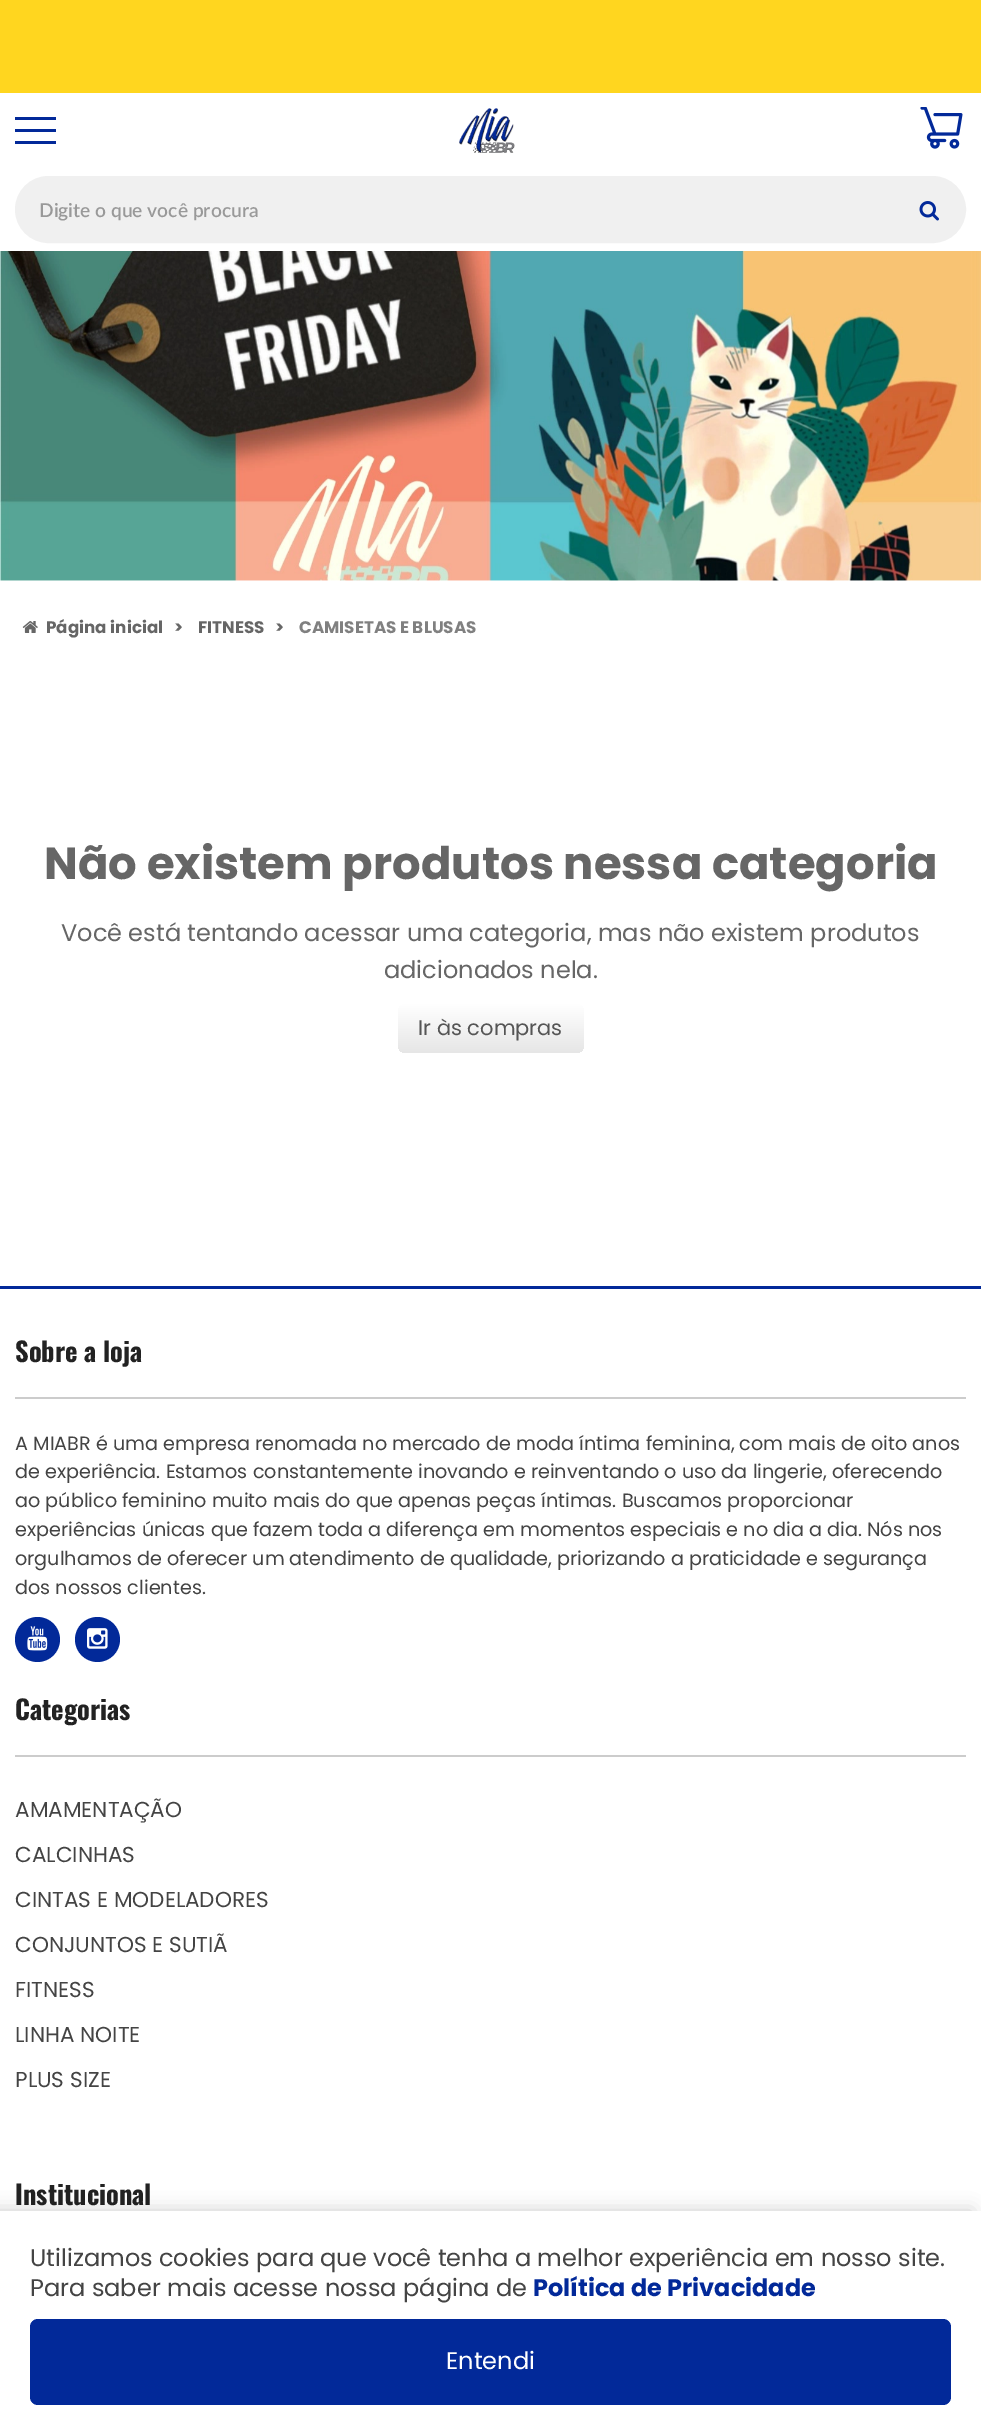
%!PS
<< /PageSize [981 2435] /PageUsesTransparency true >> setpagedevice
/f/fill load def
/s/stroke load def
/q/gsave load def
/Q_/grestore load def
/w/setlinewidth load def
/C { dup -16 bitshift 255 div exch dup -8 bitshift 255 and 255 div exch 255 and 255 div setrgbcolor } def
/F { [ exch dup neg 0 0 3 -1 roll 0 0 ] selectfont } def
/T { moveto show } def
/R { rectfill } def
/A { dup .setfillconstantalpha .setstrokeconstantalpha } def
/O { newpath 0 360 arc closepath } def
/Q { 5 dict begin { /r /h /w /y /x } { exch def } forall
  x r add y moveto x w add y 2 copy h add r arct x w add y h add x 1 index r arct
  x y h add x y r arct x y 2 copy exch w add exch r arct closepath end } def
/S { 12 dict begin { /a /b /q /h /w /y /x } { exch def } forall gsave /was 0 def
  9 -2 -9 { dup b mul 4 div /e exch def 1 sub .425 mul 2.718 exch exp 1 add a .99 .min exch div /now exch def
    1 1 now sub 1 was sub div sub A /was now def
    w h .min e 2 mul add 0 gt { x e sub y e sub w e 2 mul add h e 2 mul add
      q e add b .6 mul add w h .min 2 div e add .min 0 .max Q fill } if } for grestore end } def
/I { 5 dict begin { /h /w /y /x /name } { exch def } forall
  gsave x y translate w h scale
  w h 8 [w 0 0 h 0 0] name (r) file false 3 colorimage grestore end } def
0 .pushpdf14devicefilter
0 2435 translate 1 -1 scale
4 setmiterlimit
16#FFFFFF C
0 0 981 2435 R
16#FFD61F C
0 0 981 93 R
16#022999 C
15 117 41 3 R
15 129 41 3 R
15 141 41 3 R
(1.rgb) 459 108 56 45 I
(2.rgb) 920 107 43 42 I
16#F0F0F0 C
16 177 949 65 32.5 Q q f Q_
2 w
s
/Lato-SemiBold 19.2 F
16#999999 C
(Digite o que você procura) 39 217 T
(3.rgb) 919 201 20 20 I
(4.rgb) 0 251 981 330 I
(5.rgb) 22 621 16 12 I
/Poppins-Bold 16.75 F
16#666666 C
(Página inicial) 46 633 T
(>) 174 633 T
(FITNESS) 198 633 T
(>) 275 633 T
16#808080 C
(CAMISETAS E BLUSAS) 299 633 T
/Poppins-Bold 45 F
16#666666 C
(Não existem produtos nessa categoria) 44 879 T
/Poppins-Regular 24 F
(Você está tentando acessar uma categoria, mas não existem produtos) 61 941 T
(adicionados nela.) 384 978 T
q 398 1004 186 49 8 Q clip newpath
<< /ShadingType 2 /ColorSpace /DeviceRGB /Coords [491 1004 491 1053] /Extend [true true] /Function << /FunctionType 2 /Domain [0 1] /C0 [1 1 1] /C1 [.902 .902 .902] /N 1 >> >> shfill Q_
/Poppins-Regular 21 F
16#555555 C
(Ir às compras) 418 1035 T
16#022999 C
0 1286 981 3 R
16#CCCCCC C
15 1397 951 2 R
/Oswald-Bold 26.5 F
16#222222 C
(Sobre a loja) 15 1362 T
/Poppins-Regular 19.2 F
16#444444 C
(A MIABR é uma empresa renomada no mercado de moda íntima feminina, com mais de oito anos) 15 1450 T
(de experiência. Estamos constantemente inovando e reinventando o uso da lingerie, oferecendo) 15 1478 T
(ao público feminino muito mais do que apenas peças íntimas. Buscamos proporcionar) 15 1507 T
(experiências únicas que fazem toda a diferença em momentos especiais e no dia a dia. Nós nos) 15 1536 T
(orgulhamos de oferecer um atendimento de qualidade, priorizando a praticidade e segurança) 15 1565 T
(dos nossos clientes.) 15 1594 T
16#022999 C
37.5 1639.5 22.5 O f
(6.rgb) 27 1626 21 25 I
97.5 1639.5 22.5 O f
(7.rgb) 87 1628 21 21 I
16#CCCCCC C
15 1755 951 2 R
/Oswald-Bold 26.5 F
16#222222 C
(Categorias) 15 1720 T
/Poppins-Regular 21.6 F
16#444444 C
(AMAMENTAÇÃO) 15 1817 T
(CALCINHAS) 15 1862 T
(CINTAS E MODELADORES) 15 1907 T
(CONJUNTOS E SUTIÃ) 15 1952 T
(FITNESS) 15 1997 T
(LINHA NOITE) 15 2042 T
(PLUS SIZE) 15 2087 T
/Oswald-Bold 26.5 F
16#222222 C
(Institucional) 15 2205 T
16#000000 C
-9 2211 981 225 0 9 .2 S
16#FFFFFF C
0 2211 981 224 R
/Poppins-Regular 24 F
16#444444 C
(Utilizamos cookies para que você tenha a melhor experiência em nosso site.) 30 2266 T
(Para saber mais acesse nossa página de) 30 2296 T
/Poppins-Bold 24 F
16#022999 C
(Política de Privacidade) 533 2296 T
30 2319 921 86 8 Q f
/Poppins-Regular 24 F
16#FFFFFF C
(Entendi) 446 2369 T
.poppdf14devicefilter showpage
